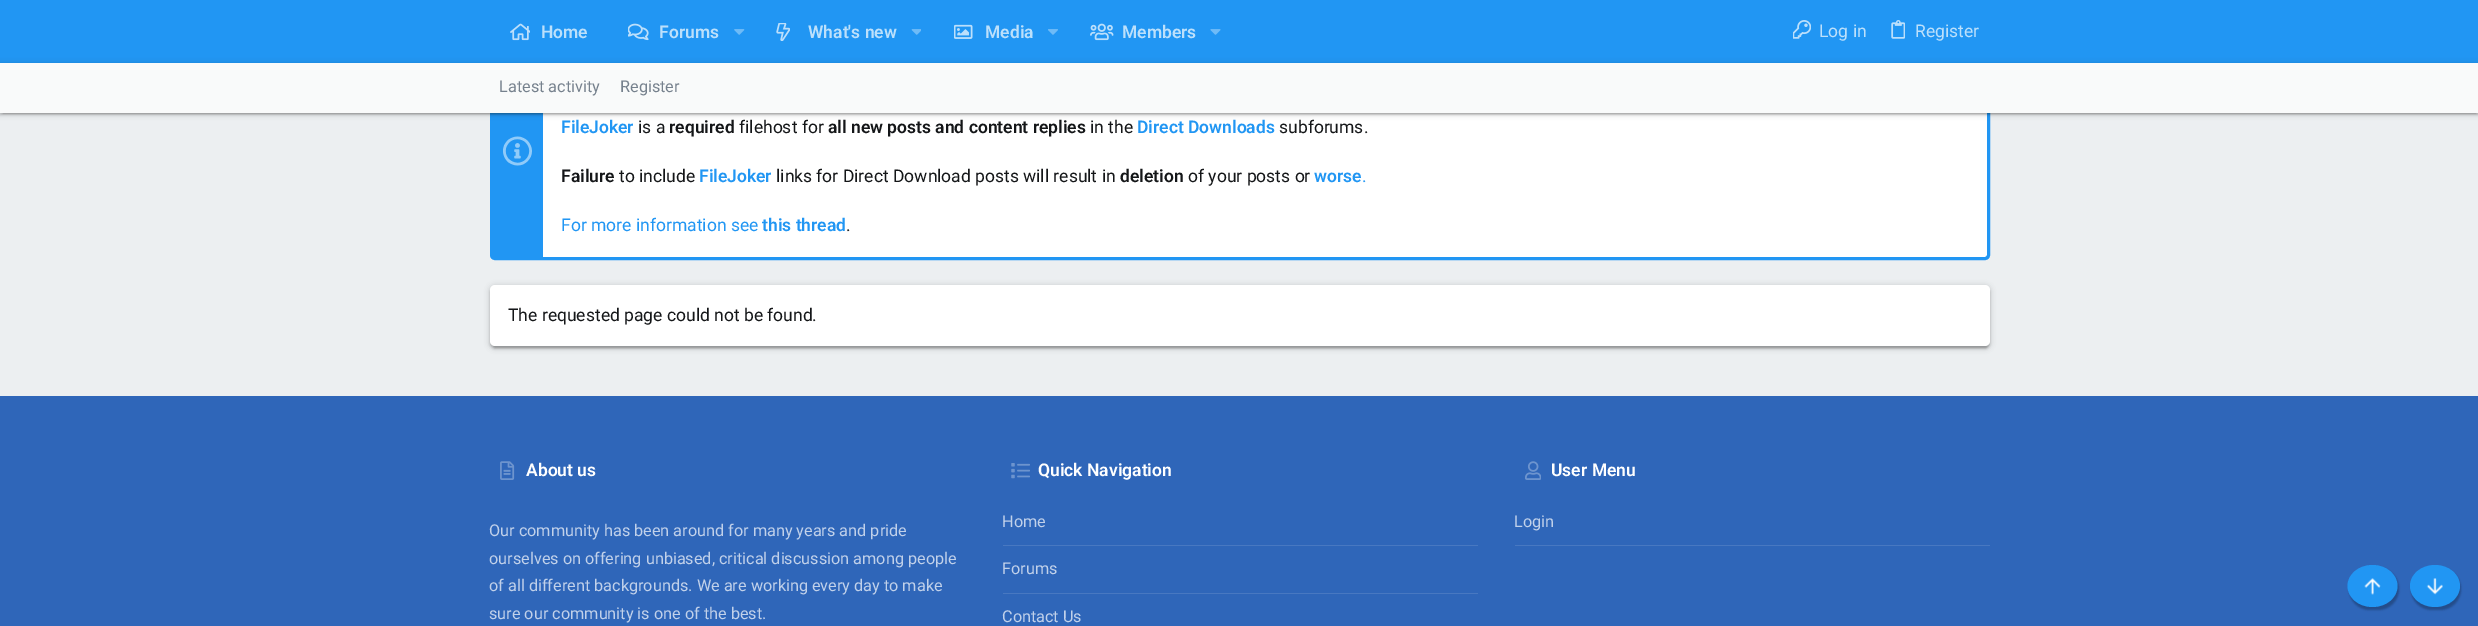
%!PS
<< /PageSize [2478 626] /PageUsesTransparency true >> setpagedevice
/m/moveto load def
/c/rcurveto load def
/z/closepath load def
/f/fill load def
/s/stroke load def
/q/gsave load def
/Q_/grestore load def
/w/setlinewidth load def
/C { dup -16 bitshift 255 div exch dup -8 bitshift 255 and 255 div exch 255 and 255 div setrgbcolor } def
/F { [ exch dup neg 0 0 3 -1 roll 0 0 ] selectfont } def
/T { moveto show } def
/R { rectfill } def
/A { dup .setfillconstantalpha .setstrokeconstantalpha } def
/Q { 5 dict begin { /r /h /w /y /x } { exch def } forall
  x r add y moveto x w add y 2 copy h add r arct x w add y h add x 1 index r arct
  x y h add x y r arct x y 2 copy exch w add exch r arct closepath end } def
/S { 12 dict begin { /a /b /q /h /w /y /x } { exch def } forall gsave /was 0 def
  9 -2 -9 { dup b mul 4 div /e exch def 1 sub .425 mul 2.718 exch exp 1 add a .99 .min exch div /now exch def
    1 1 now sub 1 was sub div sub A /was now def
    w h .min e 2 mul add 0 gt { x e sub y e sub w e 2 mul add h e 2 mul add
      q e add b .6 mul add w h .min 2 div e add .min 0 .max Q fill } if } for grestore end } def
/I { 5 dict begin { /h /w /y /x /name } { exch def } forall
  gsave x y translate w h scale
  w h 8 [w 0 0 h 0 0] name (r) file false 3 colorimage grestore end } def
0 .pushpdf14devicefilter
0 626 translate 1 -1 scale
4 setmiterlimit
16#ECEFF1 C
0 0 2478 626 R
16#FFFFFF C
491.5 46.5 1497 212 3.5 Q q f Q_
16#2196F3 C
3 w
s
0 0 2478 63 R
(1.rgb) 510 23 20 18 I
/Roboto-SemiBold 17.5 F
16#BCE0FB C
(Home) 541 38 T
(2.rgb) 628 23 21 18 I
(Forums) 659 38 T
(3.rgb) 734 29 11 6 I
(4.rgb) 776 23 14 18 I
(What's new) 808 38 T
(5.rgb) 911 29 10 6 I
(6.rgb) 954 24 19 15 I
(Media) 985 38 T
(7.rgb) 1048 29 10 6 I
(8.rgb) 1090 23 24 18 I
(Members) 1122 38 T
(9.rgb) 1210 29 11 6 I
(10.rgb) 1793 20 18 19 I
/Roboto-Regular 17.5 F
(Log in) 1819 37 T
(11.rgb) 1891 20 14 19 I
(Register) 1915 37 T
16#2196F3 C
493 113 50 144 R
16#000000 C
0 64 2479 50 0 3 .2 S
3 69 2473 45 0 .5 .12 S
0 65 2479 50 0 1 .14 S
16#F9FAFA C
0 63 2478 50 R
/Roboto-Regular 16.25 F
16#76818D C
(Latest activity) 499 92 T
(Register) 620 92 T
(12.rgb) 503 136 29 30 I
/Roboto-SemiBold 17.5 F
16#2196F3 C
(FileJoker) 561 133 T
/Roboto-Regular 17.5 F
16#141618 C
(is a) 638 133 T
/Roboto-SemiBold 17.5 F
(required) 669 133 T
/Roboto-Regular 17.5 F
(filehost for) 739 133 T
/Roboto-SemiBold 17.5 F
(all new posts and content replies) 828 133 T
/Roboto-Regular 17.5 F
(in the) 1090 133 T
/Roboto-SemiBold 17.5 F
16#2196F3 C
(Direct Downloads) 1137 133 T
/Roboto-Regular 17.5 F
16#141618 C
(subforums.) 1279 133 T
/Roboto-SemiBold 17.5 F
(Failure) 561 182 T
/Roboto-Regular 17.5 F
(to include) 619 182 T
/Roboto-SemiBold 17.5 F
16#2196F3 C
(FileJoker) 699 182 T
/Roboto-Regular 17.5 F
16#141618 C
(links for Direct Download posts will result in) 776 182 T
/Roboto-SemiBold 17.5 F
(deletion) 1120 182 T
/Roboto-Regular 17.5 F
(of your posts or) 1188 182 T
/Roboto-SemiBold 17.5 F
16#2196F3 C
(worse) 1314 182 T
/Roboto-Regular 17.5 F
(.) 1362 182 T
(For more information see) 561 231 T
/Roboto-SemiBold 17.5 F
(this thread) 762 231 T
/Roboto-Regular 17.5 F
16#141618 C
(.) 846 231 T
16#000000 C
490 286 1500 62 5 3 .2 S
493 291 1495 57 2.5 .5 .12 S
490 288 1500 61 5 1 .14 S
16#FFFFFF C
490 285 1500 61 5 Q f
16#141618 C
(The requested page could not be found.) 508 321 T
16#2F66B9 C
0 396 2478 230 R
(13.rgb) 500 461 15 19 I
/Roboto-SemiBold 17.5 F
16#FFFFFF C
(About us) 526 476 T
/Roboto-Regular 16.25 F
16#C1D1EA C
(Our community has been around for many years and pride) 489 536 T
(ourselves on offering unbiased, critical discussion among people) 489 564 T
(of all different backgrounds. We are working every day to make) 489 591 T
(sure our community is one of the best.) 489 619 T
(14.rgb) 1011 463 19 16 I
/Roboto-SemiBold 17.5 F
16#FFFFFF C
(Quick Navigation) 1038 476 T
16#4878C1 C
1003 545 475 1 R
/Roboto-Regular 16.25 F
16#C1D1EA C
(Home) 1002 527 T
16#4878C1 C
1003 593 475 1 R
16#C1D1EA C
(Forums) 1002 574 T
(Contact Us) 1002 622 T
(15.rgb) 1525 461 16 19 I
/Roboto-SemiBold 17.5 F
16#FFFFFF C
(User Menu) 1551 476 T
16#4878C1 C
1515 545 475 1 R
/Roboto-Regular 16.25 F
16#C1D1EA C
(Login) 1514 527 T
16#000000 C
2349 568 50 42 21 1 .25 S
16#2196F3 C
2372.5 565 m 14 0 25 9.5 25 21 c 0 11.5 -11 21 -25 21 c -14 0 -25 -9.5 -25 -21 c 0 -11.5 11 -21 25 -21 c z f
(16.rgb) 2364 578 17 17 I
16#000000 C
2411 568 50 42 21 1 .25 S
16#2196F3 C
2435 565 m 14 0 25 9.5 25 21 c 0 11.5 -11 21 -25 21 c -14 0 -25 -9.5 -25 -21 c 0 -11.5 11 -21 25 -21 c z f
(17.rgb) 2426 578 17 17 I
.poppdf14devicefilter showpage
